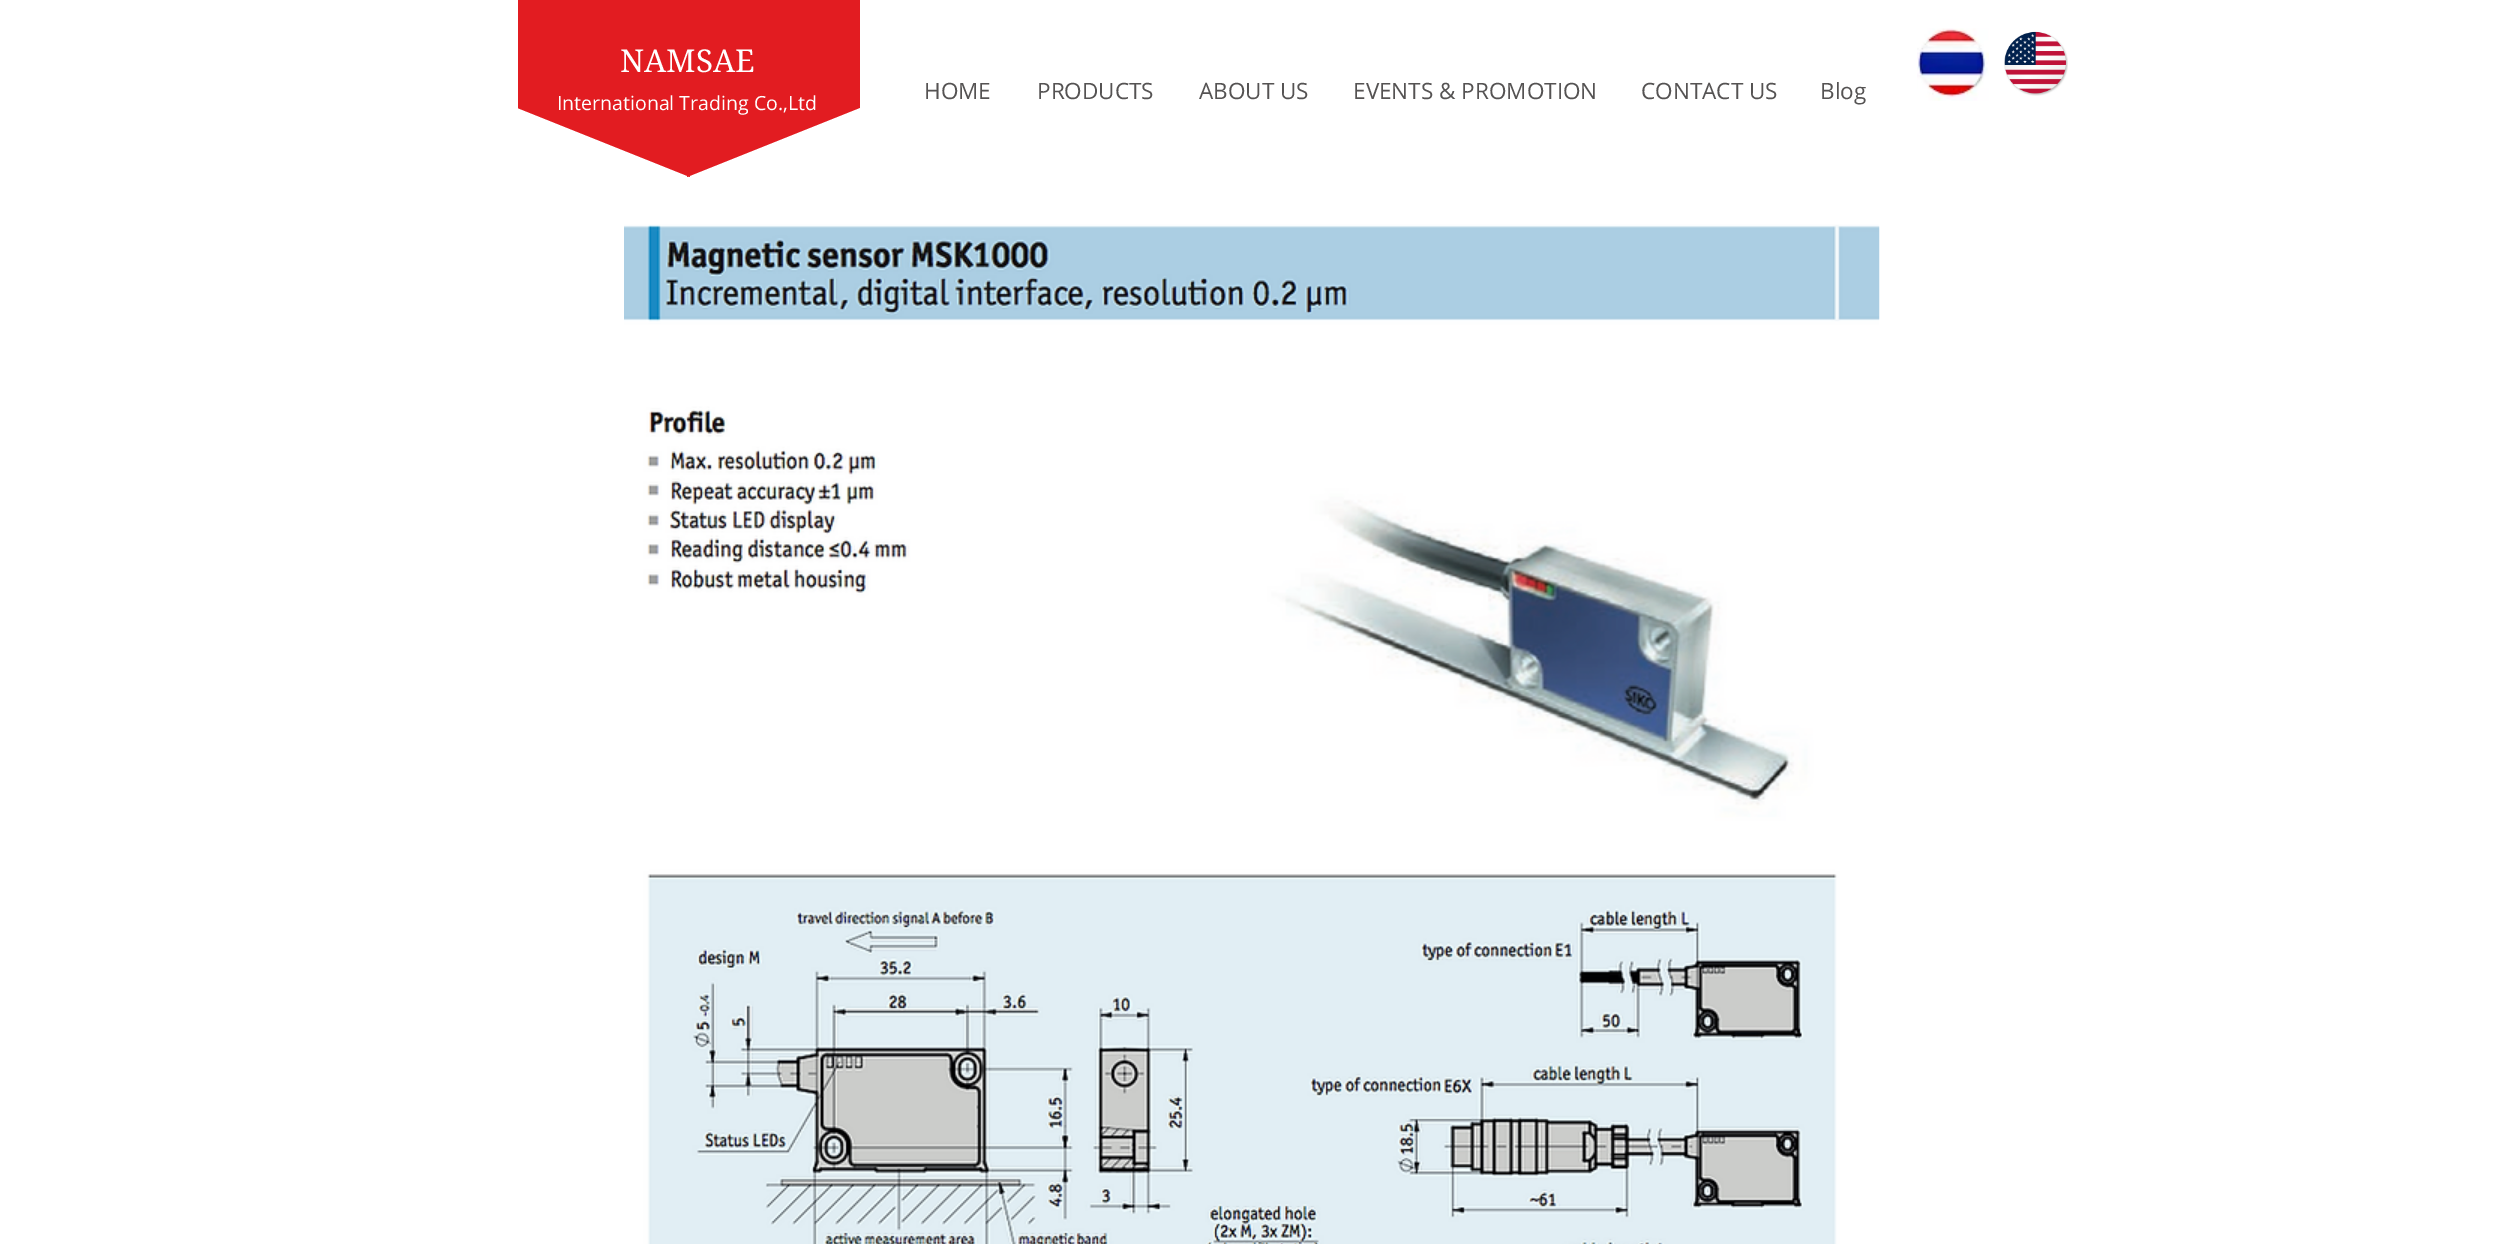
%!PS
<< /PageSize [2505 1244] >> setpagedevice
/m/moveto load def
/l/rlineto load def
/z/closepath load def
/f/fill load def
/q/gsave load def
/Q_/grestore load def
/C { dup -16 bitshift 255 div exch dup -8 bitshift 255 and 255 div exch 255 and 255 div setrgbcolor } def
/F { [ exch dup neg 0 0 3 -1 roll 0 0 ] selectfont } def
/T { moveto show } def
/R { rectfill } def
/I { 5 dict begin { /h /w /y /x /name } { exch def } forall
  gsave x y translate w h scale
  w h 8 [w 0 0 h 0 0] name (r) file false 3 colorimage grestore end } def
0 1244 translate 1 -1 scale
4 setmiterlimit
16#FFFFFF C
0 0 2505 1244 R
q
518 0 342 179 rectclip
16#E21C21 C
687 177 m 0 -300 l 750 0 l z f
690 -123 m 0 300 l -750 -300 l z f
Q_
/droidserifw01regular-Regular 31.5 F
(NAMSAE) 620 72 T
/OpenSans-Regular 19.5 F
(International Trading Co.,Ltd) 557 110 T
(1.rgb) 1917 28 72 73 I
(2.rgb) 2004 31 64 65 I
/OpenSans-Regular 22.5 F
16#555353 C
(HOME) 924 99 T
(PRODUCTS) 1037 99 T
(ABOUT US) 1199 99 T
(EVENTS & PROMOTION) 1353 99 T
(CONTACT US) 1641 99 T
(Blog) 1820 99 T
(3.rgb) 624 224 1256 1020 I
showpage
